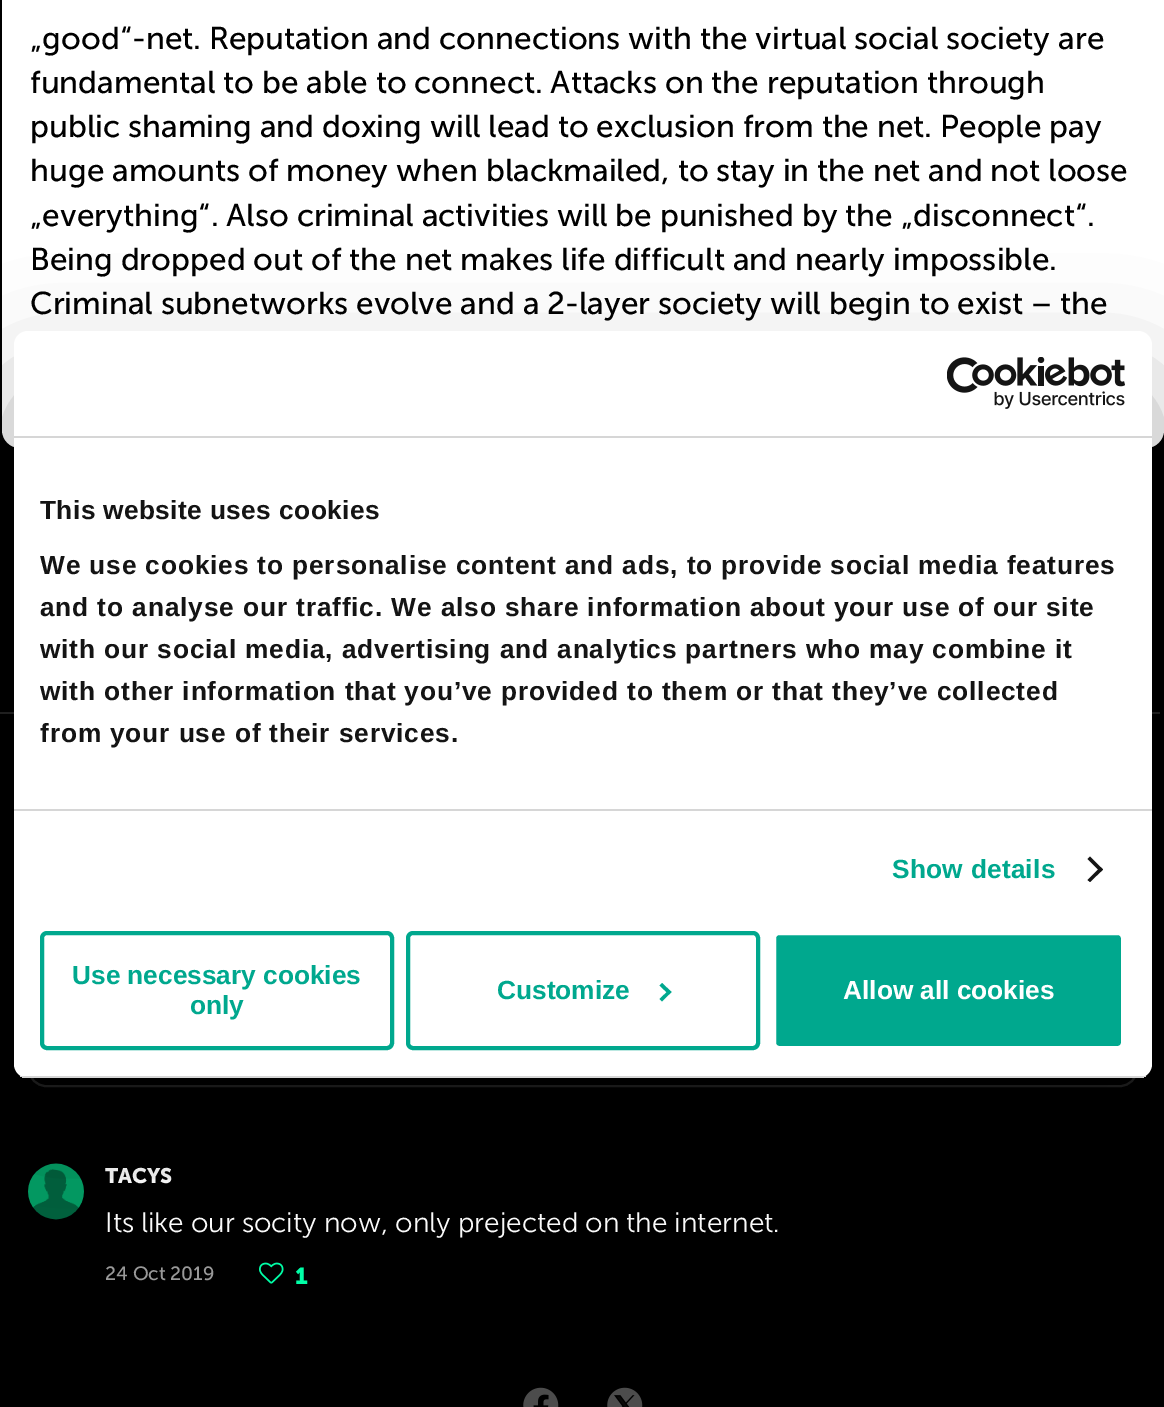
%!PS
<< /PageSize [1164 1407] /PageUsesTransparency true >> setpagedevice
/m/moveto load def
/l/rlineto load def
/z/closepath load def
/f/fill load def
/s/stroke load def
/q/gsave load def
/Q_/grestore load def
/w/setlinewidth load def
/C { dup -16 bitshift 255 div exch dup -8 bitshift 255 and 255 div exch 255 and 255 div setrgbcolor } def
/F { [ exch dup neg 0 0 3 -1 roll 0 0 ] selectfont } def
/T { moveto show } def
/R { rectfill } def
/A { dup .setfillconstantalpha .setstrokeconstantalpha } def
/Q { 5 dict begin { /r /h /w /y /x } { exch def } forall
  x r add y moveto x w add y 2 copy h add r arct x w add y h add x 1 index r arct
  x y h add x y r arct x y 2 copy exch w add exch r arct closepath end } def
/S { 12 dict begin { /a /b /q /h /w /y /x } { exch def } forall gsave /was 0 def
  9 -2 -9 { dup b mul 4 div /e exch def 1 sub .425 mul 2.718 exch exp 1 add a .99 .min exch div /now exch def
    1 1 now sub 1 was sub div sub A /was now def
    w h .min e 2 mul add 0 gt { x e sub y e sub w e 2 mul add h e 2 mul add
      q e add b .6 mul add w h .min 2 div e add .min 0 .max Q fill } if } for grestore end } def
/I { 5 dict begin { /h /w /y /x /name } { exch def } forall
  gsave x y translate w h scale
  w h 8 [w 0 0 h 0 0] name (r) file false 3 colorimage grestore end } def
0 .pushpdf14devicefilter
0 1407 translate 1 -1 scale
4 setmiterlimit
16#000000 C
0 0 1164 1407 R
16#FFFFFF C
2 -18 1162 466 18 Q f
/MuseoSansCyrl-Regular 31.5 F
16#000000 C
(„good“-net. Reputation and connections with the virtual social society are) 30 49 T
(fundamental to be able to connect. Attacks on the reputation through) 30 93 T
(public shaming and doxing will lead to exclusion from the net. People pay) 30 137 T
(huge amounts of money when blackmailed, to stay in the net and not loose) 30 181 T
(„everything“. Also criminal activities will be punished by the „disconnect“.) 30 226 T
(Being dropped out of the net makes life difficult and nearly impossible.) 30 270 T
(Criminal subnetworks evolve and a 2-layer society will begin to exist – the) 30 314 T
16#242424 C
0 712 1160 2 R
16#212121 C
2 w
29 789 1108 297 17 Q s
(1.rgb) 28 1163 56 57 I
/MuseoSansCyrl-Bold 21 F
16#FFFFFF C
(TACYS) 105 1183 T
/MuseoSansCyrl-Light 28 F
(Its like our socity now, only prejected on the internet.) 105 1232 T
/MuseoSansCyrl-Regular 19.25 F
16#999999 C
(24 Oct 2019) 105 1280 T
(2.rgb) 259 1262 25 22 I
/MuseoSansCyrl-Bold 23 F
16#00FFA7 C
(1) 295 1284 T
16#000000 C
14 387 1138 747 14 59.5 .3 S
16#FFFFFF C
14 331 1138 747 14 Q f
16#D6D6D6 C
14 436 1138 2 R
(3.rgb) 947 357 178 52 I
14 809 1138 2 R
/LiberationSans-Bold 26.25 F
16#141414 C
40 519 m .4 0 (This website uses cookies) ashow
40 574 m .88 0 (We use cookies to personalise content and ads, to provide social media features) ashow
40 616 m .88 0 (and to analyse our traffic. We also share information about your use of our site) ashow
40 658 m .88 0 (with our social media, advertising and analytics partners who may combine it) ashow
40 700 m .88 0 (with other information that you’ve provided to them or that they’ve collected) ashow
40 742 m .88 0 (from your use of their services.) ashow
16#00A88E C
892 878 m .25 0 (Show details) ashow
16#141414 C
1090 856.5 m 13 13 l -2.5 2.5 l -13 -13 l z f
1100.5 867 m 2.5 2.5 l -13 12.5 l -2.5 -2 l z f
q
14 331 1138 747 14 Q clip newpath
16#D6D6D6 C
14 1076 1138 2 R
Q_
16#00A88E C
4 w
42 933 350 115 5 Q s
(Use necessary cookies) 72 984 T
(only) 190 1014 T
408 933 350 115 5 Q s
(Customize) 497 999 T
662 983 m 9.5 9 l -2.5 2.5 l -9.5 -9 l z f
669 990 m 2.5 2 l -9.5 9.5 l -2.5 -2.5 l z f
774 933 349 115 5 Q q f Q_
16#FFFFFF C
s
(Allow all cookies) 843 999 T
(4.rgb) 523 1387 36 20 I
(5.rgb) 607 1387 36 20 I
.poppdf14devicefilter showpage
